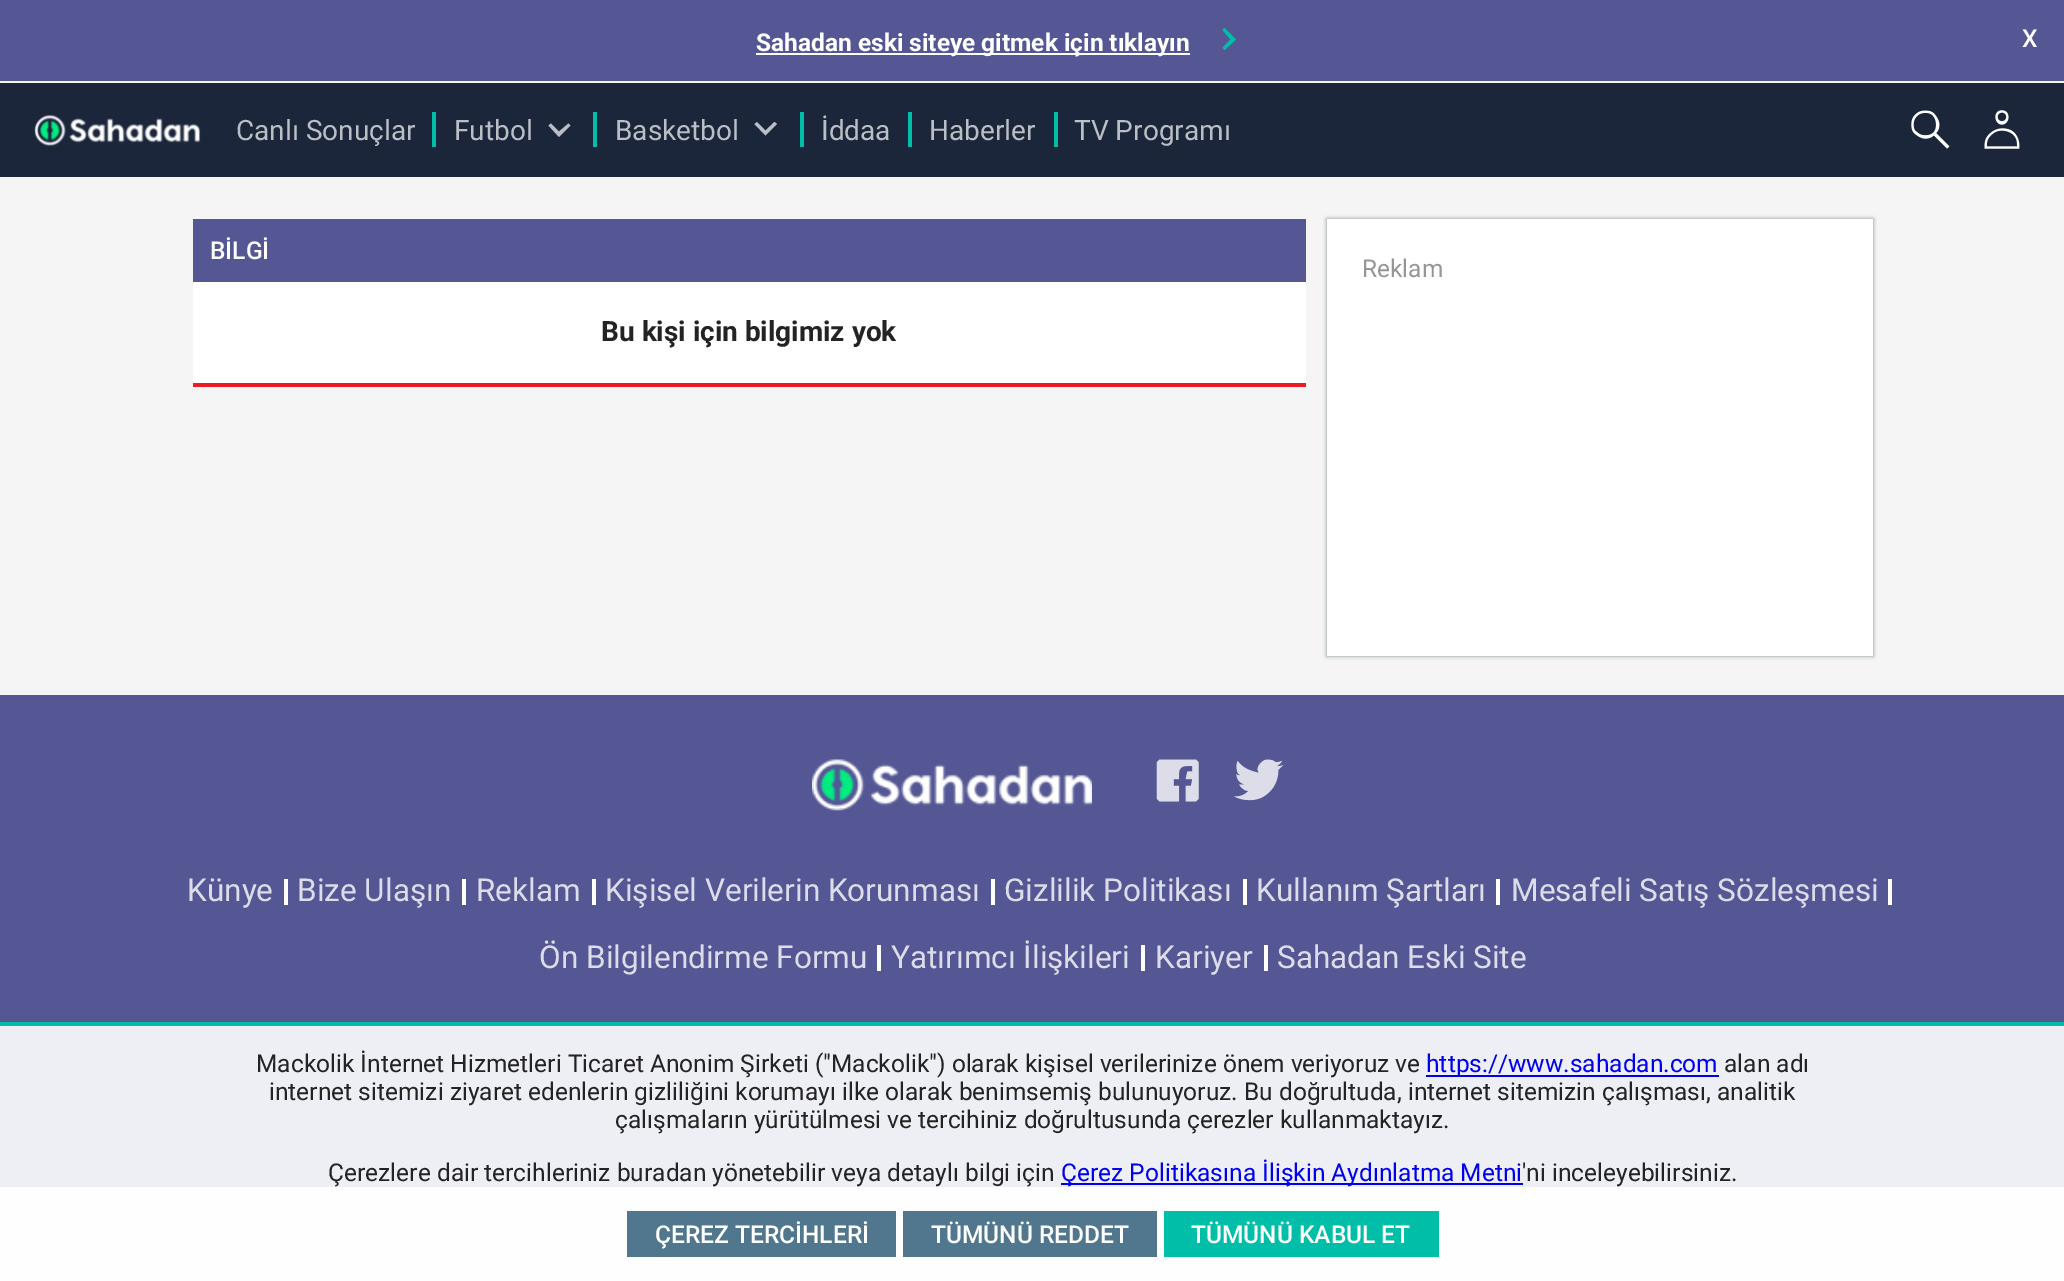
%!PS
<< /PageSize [2064 1281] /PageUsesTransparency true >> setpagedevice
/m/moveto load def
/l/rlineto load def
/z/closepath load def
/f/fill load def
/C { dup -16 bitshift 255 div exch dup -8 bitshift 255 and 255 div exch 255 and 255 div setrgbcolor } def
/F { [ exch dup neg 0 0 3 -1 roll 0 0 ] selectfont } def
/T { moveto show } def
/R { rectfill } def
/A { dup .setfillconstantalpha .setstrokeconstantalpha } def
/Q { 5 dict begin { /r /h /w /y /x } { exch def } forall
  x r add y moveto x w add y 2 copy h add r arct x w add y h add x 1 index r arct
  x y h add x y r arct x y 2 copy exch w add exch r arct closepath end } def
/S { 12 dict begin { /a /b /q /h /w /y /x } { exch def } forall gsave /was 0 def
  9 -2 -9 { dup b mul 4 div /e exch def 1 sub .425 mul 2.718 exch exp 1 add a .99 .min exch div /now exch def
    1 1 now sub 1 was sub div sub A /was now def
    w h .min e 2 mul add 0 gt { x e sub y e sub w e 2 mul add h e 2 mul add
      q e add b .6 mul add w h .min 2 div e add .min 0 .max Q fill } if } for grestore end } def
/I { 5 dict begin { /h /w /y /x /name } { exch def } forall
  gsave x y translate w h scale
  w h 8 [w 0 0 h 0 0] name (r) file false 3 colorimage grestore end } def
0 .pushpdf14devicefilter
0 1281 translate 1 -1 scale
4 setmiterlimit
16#F5F5F5 C
0 0 2064 1281 R
16#1B263B C
0 83 2064 94 R
16#555795 C
0 0 2064 81 R
16#FFFFFF C
756 53 434 2 R
/Roboto-Bold 24.5 F
(Sahadan eski siteye gitmek için tıklayın) 756 51 T
16#00BEA8 C
1236 39.5 m -11.5 10.5 l -2 -2.5 l 8 -8 l -8 -9.5 l 2 -2 l z f
/Roboto-Medium 24.5 F
16#FFFFFF C
(X) 2022 47 T
(1.rgb) 34 115 167 31 I
/Roboto-Regular 28 F
16#BBBEC4 C
(Canlı Sonuçlar) 236 140 T
16#00BEA8 C
432 112 4 35 R
16#BBBEC4 C
(Futbol) 454 140 T
559 137 m -10.5 -11.5 l 2.5 -2 l 8 8 l 9.5 -8 l 2 2 l z f
16#00BEA8 C
593 112 4 35 R
16#BBBEC4 C
(Basketbol) 615 140 T
765.5 135.5 m -11 -11.5 l 2.5 -2 l 8.5 8.5 l 9 -8.5 l 2.5 2 l z f
16#00BEA8 C
800 112 4 35 R
16#BBBEC4 C
(İddaa) 821 140 T
16#00BEA8 C
908 112 4 35 R
16#BBBEC4 C
(Haberler) 929 140 T
16#00BEA8 C
1054 112 4 35 R
16#BBBEC4 C
(TV Programı) 1074 140 T
(2.rgb) 1911 110 39 39 I
(3.rgb) 1984 110 36 39 I
16#FFFFFF C
193 282 1113 101 R
16#555795 C
193 219 1113 63 R
/Roboto-Medium 24.5 F
16#FFFFFF C
(BİLGİ) 210 259 T
16#ED1C24 C
193 383 1113 4 R
/Roboto-Bold 28 F
16#232323 C
(Bu kişi için bilgimiz yok) 601 341 T
16#081F2C C
1327 219 546 437 0 2 .5 S
16#FFFFFF C
1327 219 546 437 R
/Roboto-Regular 24.5 F
16#969696 C
(Reklam) 1362 277 T
16#555795 C
0 695 2064 492 R
(4.rgb) 812 759 280 52 I
(5.rgb) 1156 759 43 43 I
(6.rgb) 1234 759 50 42 I
/Roboto-Regular 31.5 F
16#DDDDEA C
(Künye) 187 901 T
16#FFFFFF C
284 879 4 26 R
16#DDDDEA C
(Bize Ulaşın) 297 901 T
16#FFFFFF C
462 879 4 26 R
16#DDDDEA C
(Reklam) 476 901 T
16#FFFFFF C
592 879 4 26 R
16#DDDDEA C
(Kişisel Verilerin Korunması) 605 901 T
16#FFFFFF C
991 879 4 26 R
16#DDDDEA C
(Gizlilik Politikası) 1004 901 T
16#FFFFFF C
1243 879 4 26 R
16#DDDDEA C
(Kullanım Şartları) 1256 901 T
16#FFFFFF C
1496 879 4 26 R
16#DDDDEA C
(Mesafeli Satış Sözleşmesi) 1511 901 T
16#FFFFFF C
1888 879 4 26 R
16#DDDDEA C
(Ön Bilgilendirme Formu) 539 968 T
16#FFFFFF C
877 945 4 26 R
16#DDDDEA C
(Yatırımcı İlişkileri) 891 968 T
16#FFFFFF C
1141 945 4 26 R
16#DDDDEA C
(Kariyer) 1155 968 T
16#FFFFFF C
1264 945 4 26 R
16#DDDDEA C
(Sahadan Eski Site) 1277 968 T
0.9 A
16#FFFFFF C
0 1026 2064 255 R
1 A
16#00BEA8 C
0 1022 2064 4 R
/Roboto-Regular 24.5 F
16#232323 C
(Mackolik İnternet Hizmetleri Ticaret Anonim Şirketi \("Mackolik"\) olarak kişisel verilerinize önem veriyoruz ve) 256 1072 T
16#0000EE C
1426 1075 293 2 R
(https://www.sahadan.com) 1426 1072 T
16#232323 C
(alan adı) 1724 1072 T
(internet sitemizi ziyaret edenlerin gizliliğini korumayı ilke olarak benimsemiş bulunuyoruz. Bu doğrultuda, internet sitemizin çalışması, analitik) 269 1100 T
(çalışmaların yürütülmesi ve tercihiniz doğrultusunda çerezler kullanmaktayız.) 615 1128 T
(Çerezlere dair tercihleriniz buradan yönetebilir veya detaylı bilgi için) 328 1181 T
16#0000EE C
1061 1183 462 2 R
(Çerez Politikasına İlişkin Aydınlatma Metni) 1061 1181 T
16#232323 C
('ni inceleyebilirsiniz.) 1522 1181 T
16#50778D C
627 1211 269 46 R
/Roboto-Medium 24.5 F
16#FFFFFF C
(ÇEREZ TERCİHLERİ) 655 1243 T
16#50778D C
903 1211 254 46 R
16#FFFFFF C
(TÜMÜNÜ REDDET) 931 1243 T
16#00BEA8 C
1164 1211 275 46 R
16#FFFFFF C
(TÜMÜNÜ KABUL ET) 1191 1243 T
.poppdf14devicefilter showpage
